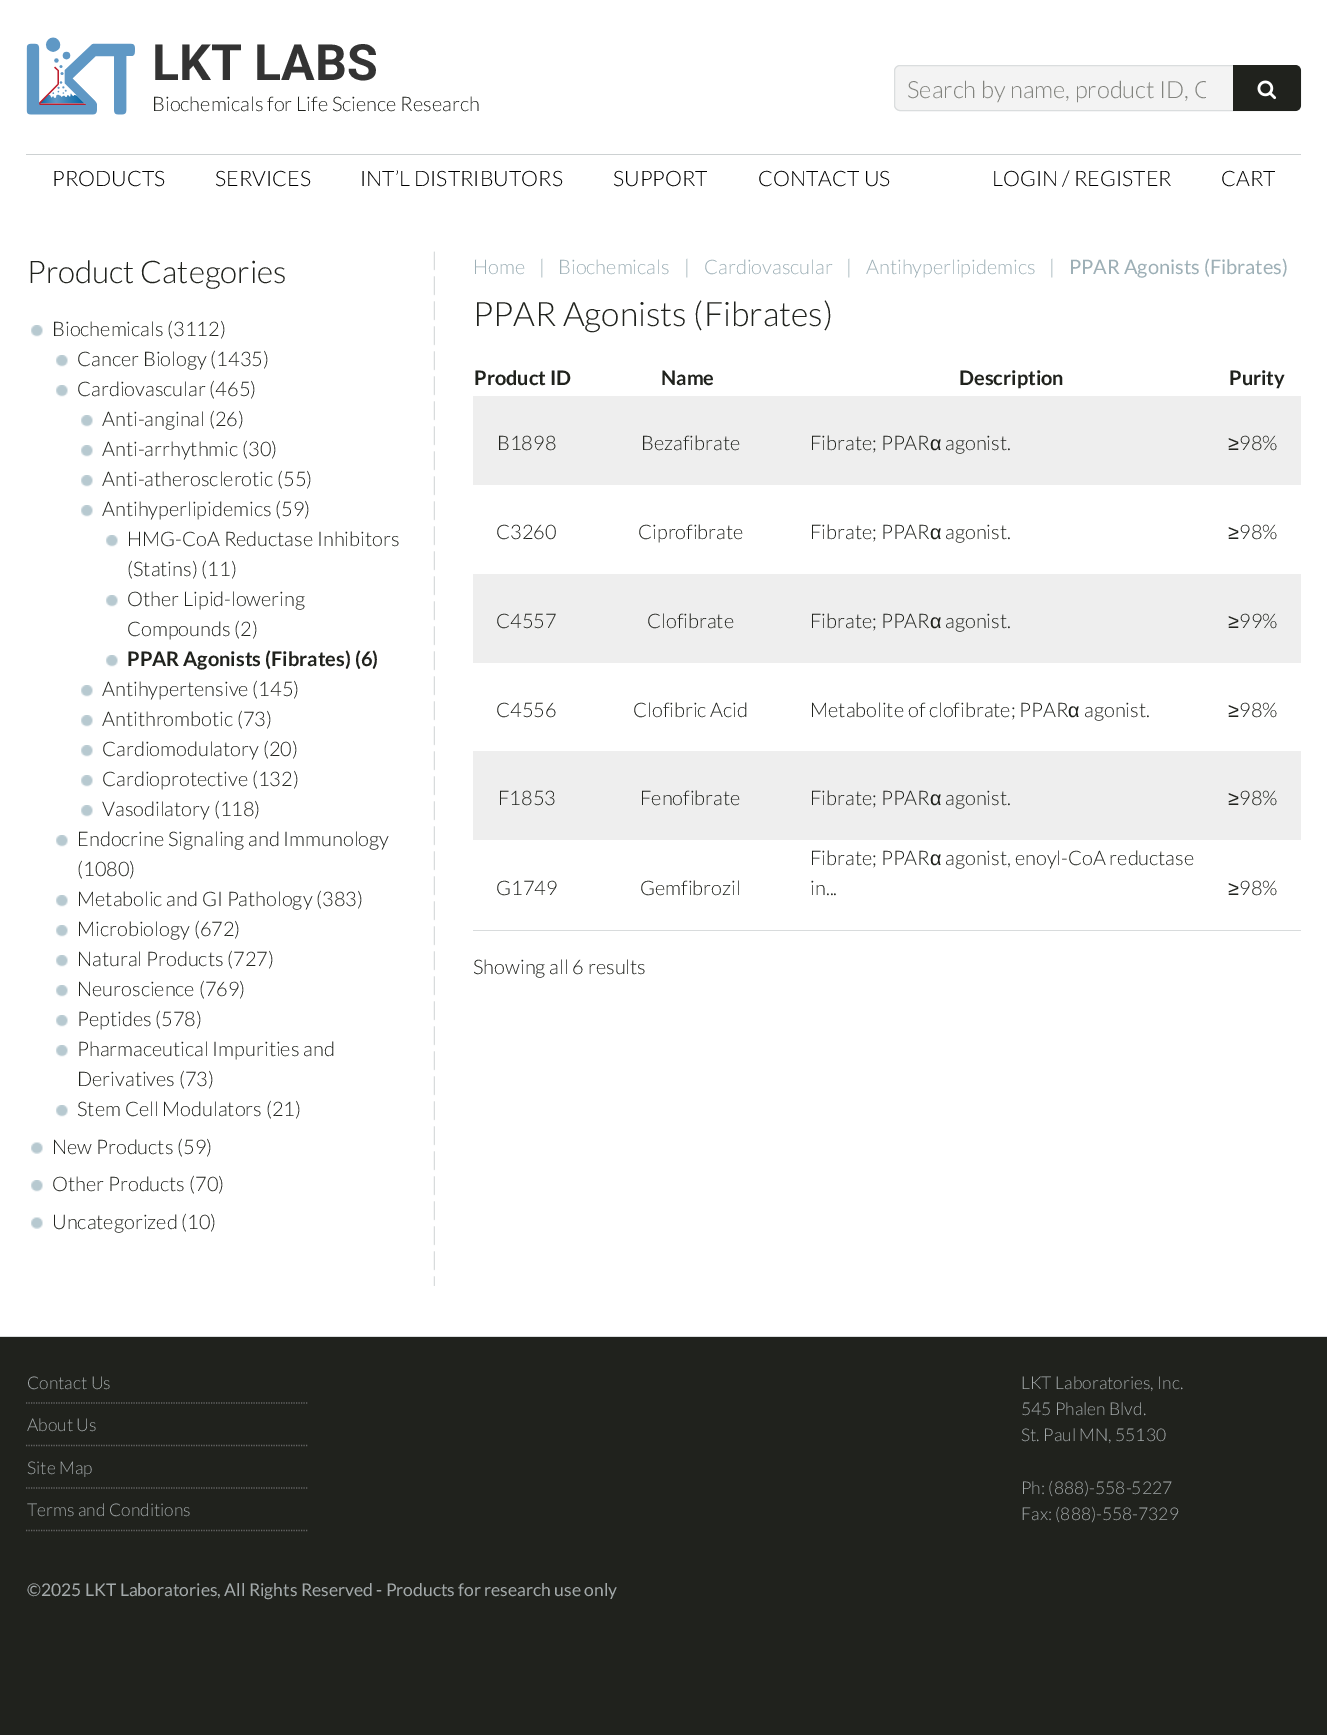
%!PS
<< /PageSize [1327 1735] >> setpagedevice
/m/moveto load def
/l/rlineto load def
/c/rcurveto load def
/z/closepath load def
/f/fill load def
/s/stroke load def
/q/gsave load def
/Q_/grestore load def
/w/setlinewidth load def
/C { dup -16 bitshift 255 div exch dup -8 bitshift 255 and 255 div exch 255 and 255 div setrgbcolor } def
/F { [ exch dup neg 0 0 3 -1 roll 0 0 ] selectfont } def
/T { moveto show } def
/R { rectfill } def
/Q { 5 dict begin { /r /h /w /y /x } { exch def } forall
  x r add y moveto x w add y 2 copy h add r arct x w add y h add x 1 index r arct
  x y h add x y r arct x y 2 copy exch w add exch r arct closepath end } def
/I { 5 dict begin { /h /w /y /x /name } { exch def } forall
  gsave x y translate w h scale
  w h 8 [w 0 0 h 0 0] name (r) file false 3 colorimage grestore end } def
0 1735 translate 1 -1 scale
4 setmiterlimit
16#FFFFFF C
0 0 1327 1735 R
(1.rgb) 26 37 109 78 I
/Roboto-Bold 50 F
16#333333 C
(LKT LABS) 152 80 T
/Lato-Light 20 F
16#20221D C
(Biochemicals for Life Science Research) 152 111 T
16#F3F3F3 C
894.5 65.5 406 45 5.5 Q q f Q_
16#DADDDE C
s
q
908 74 298 29 rectclip
/Lato-Light 23.75 F
16#82837E C
(Search by name, product ID, C) 907 98 T
Q_
16#20221D C
1233 65 m 62 0 l 3.5 0 6 2.5 6 6 c 0 34 l 0 3.5 -2.5 6 -6 6 c -62 0 l z f
(2.rgb) 1257 80 20 20 I
16#CDD1D2 C
26 154 1275 1 R
/Lato-Light 21.25 F
16#000000 C
(PRODUCTS) 52 186 T
(SERVICES) 215 186 T
(INT’L DISTRIBUTORS) 360 186 T
(SUPPORT) 613 186 T
(CONTACT US) 758 186 T
(LOGIN / REGISTER) 992 186 T
(CART) 1221 186 T
(3.rgb) 433 251 2 1035 I
/Lato-Light 31.25 F
16#20221D C
(Product Categories) 27 283 T
(4.rgb) 31 325 12 12 I
/Lato-Light 20 F
(Biochemicals \(3112\)) 52 336 T
(4.rgb) 56 355 12 12 I
(Cancer Biology \(1435\)) 77 366 T
(4.rgb) 56 385 12 12 I
(Cardiovascular \(465\)) 77 396 T
(4.rgb) 81 415 12 12 I
(Anti-anginal \(26\)) 102 426 T
(4.rgb) 81 445 12 12 I
(Anti-arrhythmic \(30\)) 102 456 T
(4.rgb) 81 475 12 12 I
(Anti-atherosclerotic \(55\)) 102 486 T
(4.rgb) 81 505 12 12 I
(Antihyperlipidemics \(59\)) 102 516 T
(4.rgb) 106 535 12 12 I
(HMG-CoA Reductase Inhibitors) 127 546 T
(\(Statins\) \(11\)) 127 576 T
(4.rgb) 106 595 12 12 I
(Other Lipid-lowering) 127 606 T
(Compounds \(2\)) 127 636 T
(4.rgb) 106 655 12 12 I
/Lato-Bold 20 F
(PPAR Agonists \(Fibrates\) \(6\)) 127 666 T
(4.rgb) 81 685 12 12 I
/Lato-Light 20 F
(Antihypertensive \(145\)) 102 696 T
(4.rgb) 81 715 12 12 I
(Antithrombotic \(73\)) 102 726 T
(4.rgb) 81 745 12 12 I
(Cardiomodulatory \(20\)) 102 756 T
(5.rgb) 81 775 12 12 I
(Cardioprotective \(132\)) 102 786 T
(4.rgb) 81 805 12 12 I
(Vasodilatory \(118\)) 102 816 T
(4.rgb) 56 835 12 12 I
(Endocrine Signaling and Immunology) 77 846 T
(\(1080\)) 77 876 T
(4.rgb) 56 895 12 12 I
(Metabolic and GI Pathology \(383\)) 77 906 T
(4.rgb) 56 925 12 12 I
(Microbiology \(672\)) 77 936 T
(4.rgb) 56 955 12 12 I
(Natural Products \(727\)) 77 966 T
(4.rgb) 56 985 12 12 I
(Neuroscience \(769\)) 77 996 T
(4.rgb) 56 1015 12 12 I
(Peptides \(578\)) 77 1026 T
(4.rgb) 56 1045 12 12 I
(Pharmaceutical Impurities and) 77 1056 T
(Derivatives \(73\)) 77 1086 T
(4.rgb) 56 1105 12 12 I
(Stem Cell Modulators \(21\)) 77 1116 T
(6.rgb) 31 1142 12 12 I
(New Products \(59\)) 52 1154 T
(4.rgb) 31 1180 12 12 I
(Other Products \(70\)) 52 1191 T
(6.rgb) 31 1217 12 12 I
(Uncategorized \(10\)) 52 1229 T
16#9DAFB6 C
(Home) 473 274 T
(|) 539 274 T
(Biochemicals) 558 274 T
(|) 684 274 T
(Cardiovascular) 704 274 T
(|) 846 274 T
(Antihyperlipidemics) 866 274 T
(|) 1049 274 T
/Lato-Regular 20 F
(PPAR Agonists \(Fibrates\)) 1069 274 T
/Lato-Light 33.75 F
16#20221D C
(PPAR Agonists \(Fibrates\)) 473 326 T
/Lato-Bold 20 F
(Product ID) 474 385 T
(Name) 661 385 T
(Description) 959 385 T
(Purity) 1229 385 T
16#D8DBDC C
473 930 828 1 R
16#EEEEEE C
473 396 828 89 R
/Lato-Light 20 F
16#20221D C
(B1898) 497 450 T
(Bezafibrate) 641 450 T
(Fibrate; PPAR) 810 450 T
/LiberationSans-Regular 20 F
(α) 930 450 T
/Lato-Light 20 F
(agonist.) 945 450 T
/LiberationSans-Regular 20 F
(≥) 1228 450 T
/Lato-Light 20 F
(98%) 1239 450 T
(C3260) 496 539 T
(Ciprofibrate) 638 539 T
(Fibrate; PPAR) 810 539 T
/LiberationSans-Regular 20 F
(α) 930 539 T
/Lato-Light 20 F
(agonist.) 945 539 T
/LiberationSans-Regular 20 F
(≥) 1228 539 T
/Lato-Light 20 F
(98%) 1239 539 T
16#EEEEEE C
473 574 828 89 R
16#20221D C
(C4557) 496 628 T
(Clofibrate) 647 628 T
(Fibrate; PPAR) 810 628 T
/LiberationSans-Regular 20 F
(α) 930 628 T
/Lato-Light 20 F
(agonist.) 945 628 T
/LiberationSans-Regular 20 F
(≥) 1228 628 T
/Lato-Light 20 F
(99%) 1239 628 T
(C4556) 496 717 T
(Clofibric Acid) 633 717 T
(Metabolite of clofibrate; PPAR) 810 717 T
/LiberationSans-Regular 20 F
(α) 1068 717 T
/Lato-Light 20 F
(agonist.) 1084 717 T
/LiberationSans-Regular 20 F
(≥) 1228 717 T
/Lato-Light 20 F
(98%) 1239 717 T
16#EEEEEE C
473 751 828 89 R
16#20221D C
(F1853) 498 805 T
(Fenofibrate) 640 805 T
(Fibrate; PPAR) 810 805 T
/LiberationSans-Regular 20 F
(α) 930 805 T
/Lato-Light 20 F
(agonist.) 945 805 T
/LiberationSans-Regular 20 F
(≥) 1228 805 T
/Lato-Light 20 F
(98%) 1239 805 T
(G1749) 496 895 T
(Gemfibrozil) 640 895 T
(Fibrate; PPAR) 810 865 T
/LiberationSans-Regular 20 F
(α) 930 865 T
/Lato-Light 20 F
(agonist, enoyl-CoA reductase) 945 865 T
(in...) 810 895 T
/LiberationSans-Regular 20 F
(≥) 1228 895 T
/Lato-Light 20 F
(98%) 1239 895 T
(Showing all 6 results) 473 974 T
-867 1336 m 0 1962 l 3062 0 l 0 -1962 l z 0 1336 m 0 226 l 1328 0 l 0 -226 l z eofill
0 1337 1327 225 R
16#DADDDE C
0 1336 1327 1 R
16#666666 C
1.2 w
[1.25 1.25] 0 setdash
26 1403 m 281.5 0 l s
/Lato-Light 17.5 F
16#A3A9AA C
(Contact Us) 27 1389 T
16#666666 C
26 1445.5 m 281.5 0 l s
16#A3A9AA C
(About Us) 27 1431 T
16#666666 C
26 1488 m 281.5 0 l s
16#A3A9AA C
(Site Map) 27 1474 T
16#666666 C
26 1530.5 m 281.5 0 l s
16#A3A9AA C
(Terms and Conditions) 27 1516 T
(LKT Laboratories, Inc.) 1021 1389 T
(545 Phalen Blvd.) 1021 1415 T
(St. Paul MN, 55130) 1021 1441 T
(Ph: \(888\)-558-5227) 1021 1494 T
(Fax: \(888\)-558-7329) 1021 1520 T
/Lato-Regular 17.5 F
(©2025 LKT Laboratories, All Rights Reserved - Products for research use only) 27 1596 T
showpage
